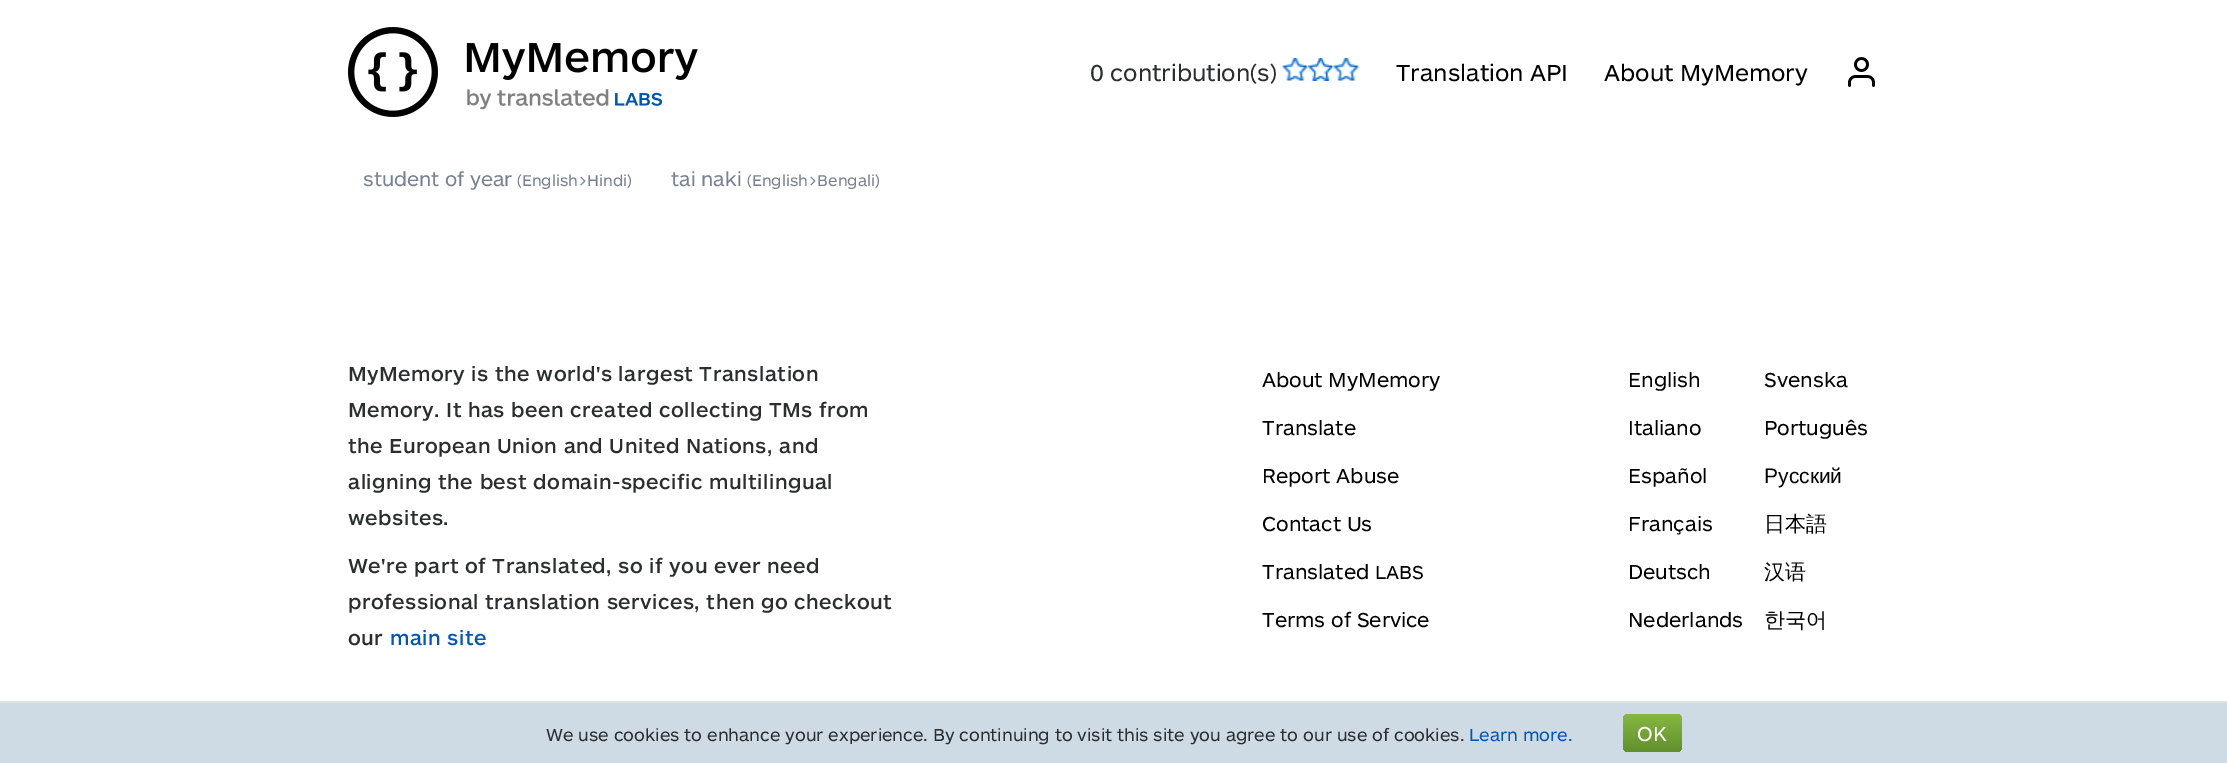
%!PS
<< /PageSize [2227 763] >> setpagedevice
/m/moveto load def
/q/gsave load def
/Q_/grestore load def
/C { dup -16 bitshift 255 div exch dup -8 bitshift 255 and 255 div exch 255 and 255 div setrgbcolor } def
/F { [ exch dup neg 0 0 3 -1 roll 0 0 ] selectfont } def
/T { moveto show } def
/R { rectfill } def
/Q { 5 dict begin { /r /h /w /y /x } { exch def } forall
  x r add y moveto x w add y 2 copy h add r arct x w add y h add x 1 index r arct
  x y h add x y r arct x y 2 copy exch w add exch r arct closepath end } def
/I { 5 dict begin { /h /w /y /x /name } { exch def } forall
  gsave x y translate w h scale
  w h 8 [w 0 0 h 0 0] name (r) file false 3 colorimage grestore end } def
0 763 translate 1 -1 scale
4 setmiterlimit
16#FFFFFF C
0 0 2227 763 R
(1.rgb) 348 27 350 90 I
/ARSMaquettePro-Regular 24 F
16#2B2D2E C
(0 contribution\(s\)) 1090 81 T
(2.rgb) 1282 58 27 23 I
(3.rgb) 1308 58 26 23 I
(4.rgb) 1333 58 27 23 I
16#000000 C
(Translation API) 1396 81 T
(About MyMemory) 1604 81 T
(5.rgb) 1848 57 27 30 I
/ARSMaquettePro-Regular 20.5 F
16#768191 C
(student of year) 363 186 T
/ARSMaquettePro-Regular 16.25 F
(\(English>Hindi\)) 517 186 T
/ARSMaquettePro-Regular 20.5 F
(tai naki) 671 186 T
/ARSMaquettePro-Regular 16.25 F
(\(English>Bengali\)) 747 186 T
/ARSMaquettePro-Medium 21 F
16#2B2D2E C
348 381 m .45 0 (MyMemory is the world's largest Translation) ashow
348 417 m .45 0 (Memory. It has been created collecting TMs from) ashow
348 453 m .45 0 (the European Union and United Nations, and) ashow
348 489 m .45 0 (aligning the best domain-specific multilingual) ashow
348 525 m .45 0 (websites.) ashow
348 573 m .45 0 (We're part of Translated, so if you ever need) ashow
348 609 m .45 0 (professional translation services, then go checkout) ashow
348 645 m .45 0 (our) ashow
16#0055B8 C
390 645 m .45 0 (main site) ashow
/ARSMaquettePro-Regular 21 F
16#000000 C
(About MyMemory) 1262 387 T
(Translate) 1262 435 T
(Report Abuse) 1262 483 T
(Contact Us) 1262 531 T
(Translated) 1262 579 T
/ARSMaquettePro-Regular 19.5 F
(LABS) 1375 579 T
/ARSMaquettePro-Regular 21 F
(Terms of Service) 1262 627 T
(English) 1628 387 T
(Svenska) 1764 387 T
(Italiano) 1628 435 T
(Português) 1764 435 T
(Español) 1628 483 T
/LiberationSans-Regular 21 F
(Русский) 1764 483 T
/ARSMaquettePro-Regular 21 F
(Français) 1628 531 T
/WenQuanYiZenHei-Medium 21 F
(日本語) 1764 531 T
/ARSMaquettePro-Regular 21 F
(Deutsch) 1628 579 T
/WenQuanYiZenHei-Medium 21 F
(汉语) 1764 579 T
/ARSMaquettePro-Regular 21 F
(Nederlands) 1628 627 T
/WenQuanYiZenHei-Medium 21 F
(한국어) 1764 627 T
16#CEDBE5 C
0 703 2227 60 R
16#DFE2E4 C
0 701 2227 2 R
/ARSMaquettePro-Regular 18 F
16#2B2D2E C
(We use cookies to enhance your experience. By continuing to visit this site you agree to our use of cookies.) 546 741 T
16#0055B8 C
(Learn more.) 1469 741 T
q 1623 714 59 38 5 Q clip newpath
<< /ShadingType 2 /ColorSpace /DeviceRGB /Coords [1623 714 1623 752] /Extend [true true] /Function << /FunctionType 2 /Domain [0 1] /C0 [.529 .722 .263] /C1 [.38 .561 .173] /N 1 >> >> shfill Q_
/ARSMaquettePro-Regular 21 F
16#FFFFFF C
(OK) 1637 741 T
showpage
